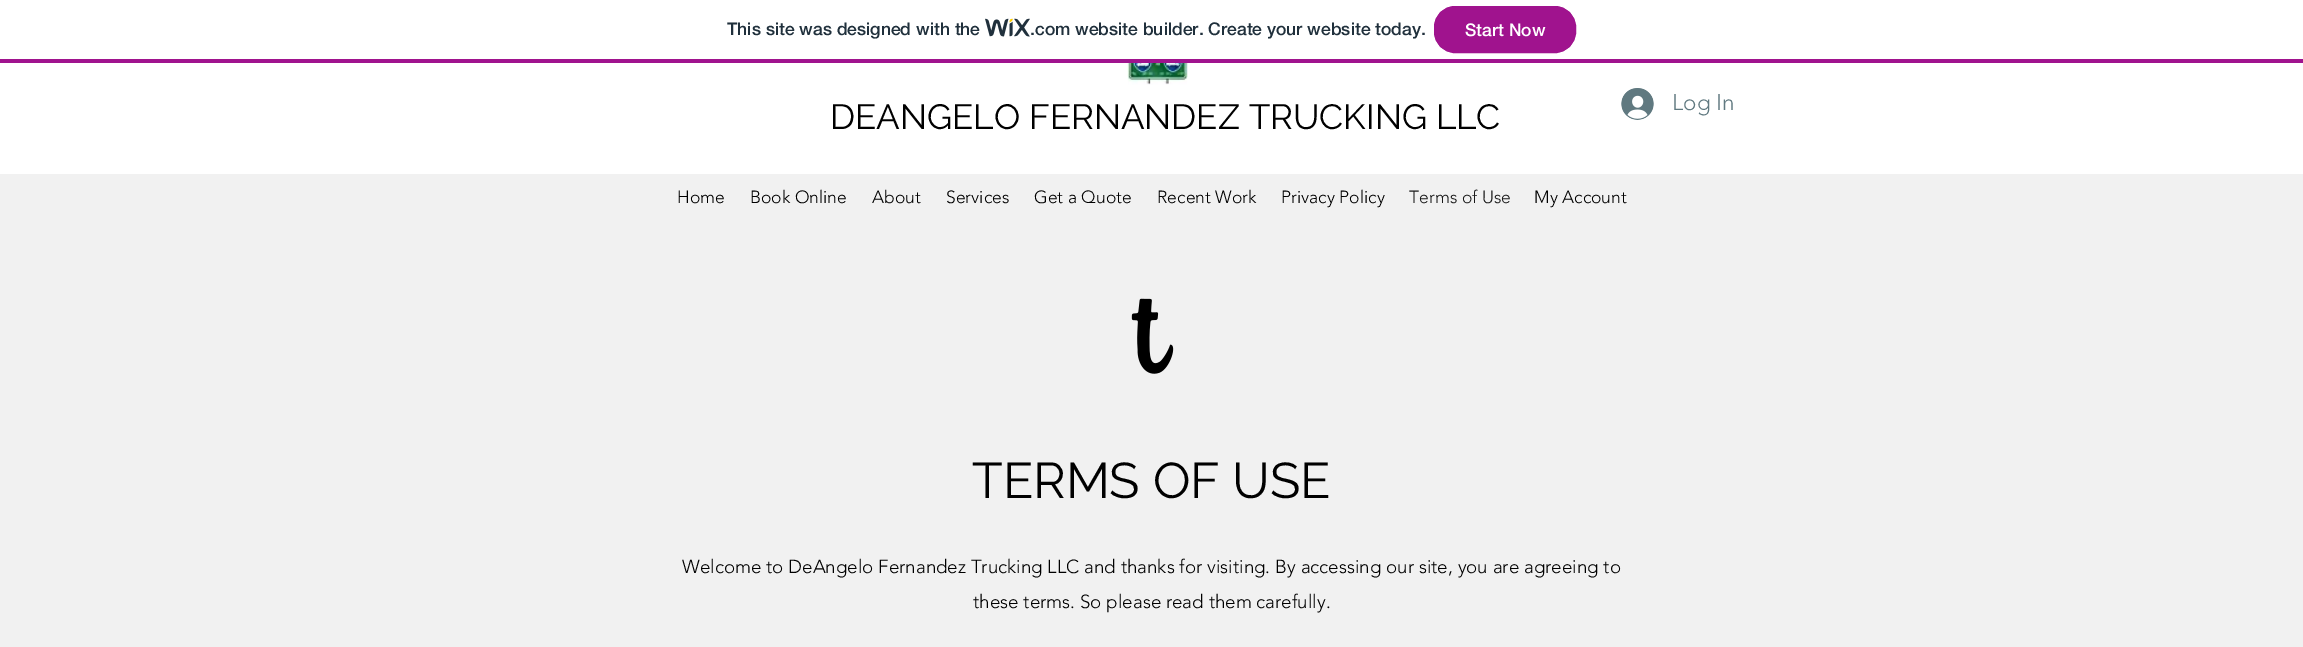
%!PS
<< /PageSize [2303 647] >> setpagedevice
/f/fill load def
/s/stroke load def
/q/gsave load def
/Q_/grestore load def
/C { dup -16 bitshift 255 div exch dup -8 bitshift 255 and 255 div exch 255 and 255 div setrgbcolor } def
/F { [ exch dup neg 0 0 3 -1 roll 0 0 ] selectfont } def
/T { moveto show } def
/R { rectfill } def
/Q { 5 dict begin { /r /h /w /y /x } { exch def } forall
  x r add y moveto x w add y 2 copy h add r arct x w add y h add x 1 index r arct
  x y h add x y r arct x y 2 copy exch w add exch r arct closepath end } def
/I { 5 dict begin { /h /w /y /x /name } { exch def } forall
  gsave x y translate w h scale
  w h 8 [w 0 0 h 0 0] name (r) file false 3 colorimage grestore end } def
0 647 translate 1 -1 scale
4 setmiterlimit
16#FFFFFF C
0 0 2303 647 R
16#A0138E C
0 59 2303 4 R
/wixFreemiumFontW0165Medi-Medium 17.5 F
16#20303C C
(This site was designed with the) 727 35 T
(1.rgb) 985 18 45 19 I
(.com website builder. Create your website today.) 1030 35 T
16#A0138E C
1434.5 6.5 141 46 20.5 Q q f Q_
s
16#FFFFFF C
(Start Now) 1465 36 T
(2.rgb) 1127 63 61 22 I
/Raleway-Regular 35 F
16#000000 C
(DEANGELO FERNANDEZ TRUCKING LLC) 830 129 T
(3.rgb) 1621 88 33 32 I
/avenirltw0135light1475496-Light 22.5 F
16#607980 C
(Log In) 1672 110 T
16#F1F1F1 C
0 174 2303 473 R
/avenirltw0135light1475496-Light 17.5 F
16#000000 C
(Home) 677 203 T
(Book Online) 750 203 T
(About) 872 203 T
(Services) 946 203 T
(Get a Quote) 1034 203 T
(Recent Work) 1157 203 T
(Privacy Policy) 1281 203 T
16#191919 C
(Terms of Use) 1409 203 T
16#000000 C
(My Account) 1534 203 T
(4.rgb) 1131 298 43 76 I
/Raleway-Regular 50 F
(TERMS OF USE) 972 498 T
/avenirltw0135light1475496-Light 18.75 F
(Welcome to DeAngelo Fernandez Trucking LLC and thanks for visiting. By accessing our site, you are agreeing to) 682 573 T
(these terms. So please read them carefully.) 973 608 T
showpage
